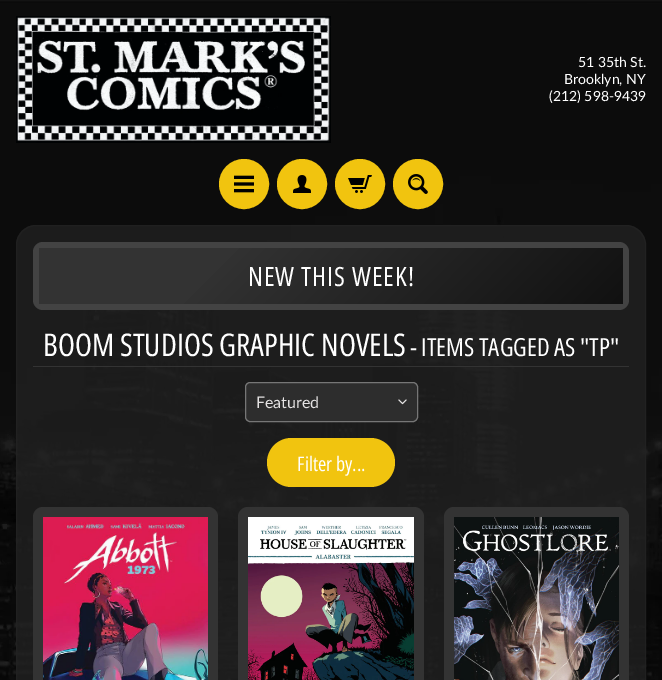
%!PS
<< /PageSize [662 680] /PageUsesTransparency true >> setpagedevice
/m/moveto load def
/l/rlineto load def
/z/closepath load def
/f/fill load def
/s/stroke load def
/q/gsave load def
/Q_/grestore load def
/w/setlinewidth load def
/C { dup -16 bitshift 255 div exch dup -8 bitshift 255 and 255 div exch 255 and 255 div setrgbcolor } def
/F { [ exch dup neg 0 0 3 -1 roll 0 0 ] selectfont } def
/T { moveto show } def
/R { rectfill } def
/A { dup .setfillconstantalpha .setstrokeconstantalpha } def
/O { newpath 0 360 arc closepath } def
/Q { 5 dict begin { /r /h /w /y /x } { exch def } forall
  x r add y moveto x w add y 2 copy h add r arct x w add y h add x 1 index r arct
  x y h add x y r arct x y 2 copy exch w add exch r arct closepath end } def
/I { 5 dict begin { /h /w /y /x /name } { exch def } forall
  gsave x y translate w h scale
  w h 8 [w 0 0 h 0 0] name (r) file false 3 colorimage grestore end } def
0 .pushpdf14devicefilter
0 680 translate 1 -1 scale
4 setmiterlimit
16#FFFFFF C
0 0 662 680 R
(1.rgb) 0 0 662 680 I
(2.rgb) 16 16 315 127 I
/Lato-Regular 14 F
(51 35th St.) 578 67 T
(Brooklyn, NY) 564 84 T
(\(212\) 598-9439) 549 101 T
16#F1C40F C
244 184 23.5 O q f Q_
3 w
s
(3.rgb) 234 175 20 18 I
302 184 23.5 O q f Q_
s
(4.rgb) 293 175 18 18 I
360 184 23.5 O q f Q_
s
(5.rgb) 348 175 24 18 I
418 184 23.5 O q f Q_
s
(6.rgb) 408 174 20 20 I
0.75 A
16#222222 C
16 225 630 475 20 Q f
0.7 A
1 w
16.5 225.5 629 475 19.5 Q s
1 A
16#434343 C
33 242 596 68 10 Q f
q 39 248 m 584 0 l 0 56 l -584 0 l z clip newpath
<< /ShadingType 2 /ColorSpace /DeviceRGB /Coords [171 116 491 436] /Extend [true true] /Function << /FunctionType 3 /Domain [0 1] /Functions [<< /FunctionType 2 /Domain [0 1] /C0 [.2 .2 .2] /C1 [.2 .2 .2] /N 1 >> << /FunctionType 2 /Domain [0 1] /C0 [.2 .2 .2] /C1 [.067 .067 .067] /N 1 >>] /Bounds [.3] /Encode [0 1 0 1] >> >> shfill Q_
/OpenSansCondensed-Regular 26.5 F
16#FFFFFF C
248 286 m 1 0 (NEW THIS WEEK!) ashow
16#333333 C
33 366 596 1 R
/OpenSansCondensed-Regular 31.25 F
16#FFFFFF C
(BOOM STUDIOS GRAPHIC NOVELS) 43 356 T
/OpenSansCondensed-Regular 25 F
(- ITEMS TAGGED AS "TP") 410 356 T
16#2D2D2D C
245 382 173 40 5 Q f
(7.rgb) 398 399 9 6 I
16#767676 C
245.5 382.5 172 39 4.5 Q s
/Lato-Regular 16 F
16#E5E3E3 C
(Featured) 256 408 T
16#F1C40F C
267 438 128 49 24.5 Q f
/OpenSansCondensed-Regular 20 F
16#FFFFFF C
(Filter by...) 297 471 T
16#333333 C
33 507 185 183 10 Q f
(8.rgb) 43 517 165 163 I
238 507 186 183 10 Q f
(9.rgb) 248 517 166 163 I
444 507 185 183 10 Q f
(10.rgb) 454 517 165 163 I
.poppdf14devicefilter showpage
